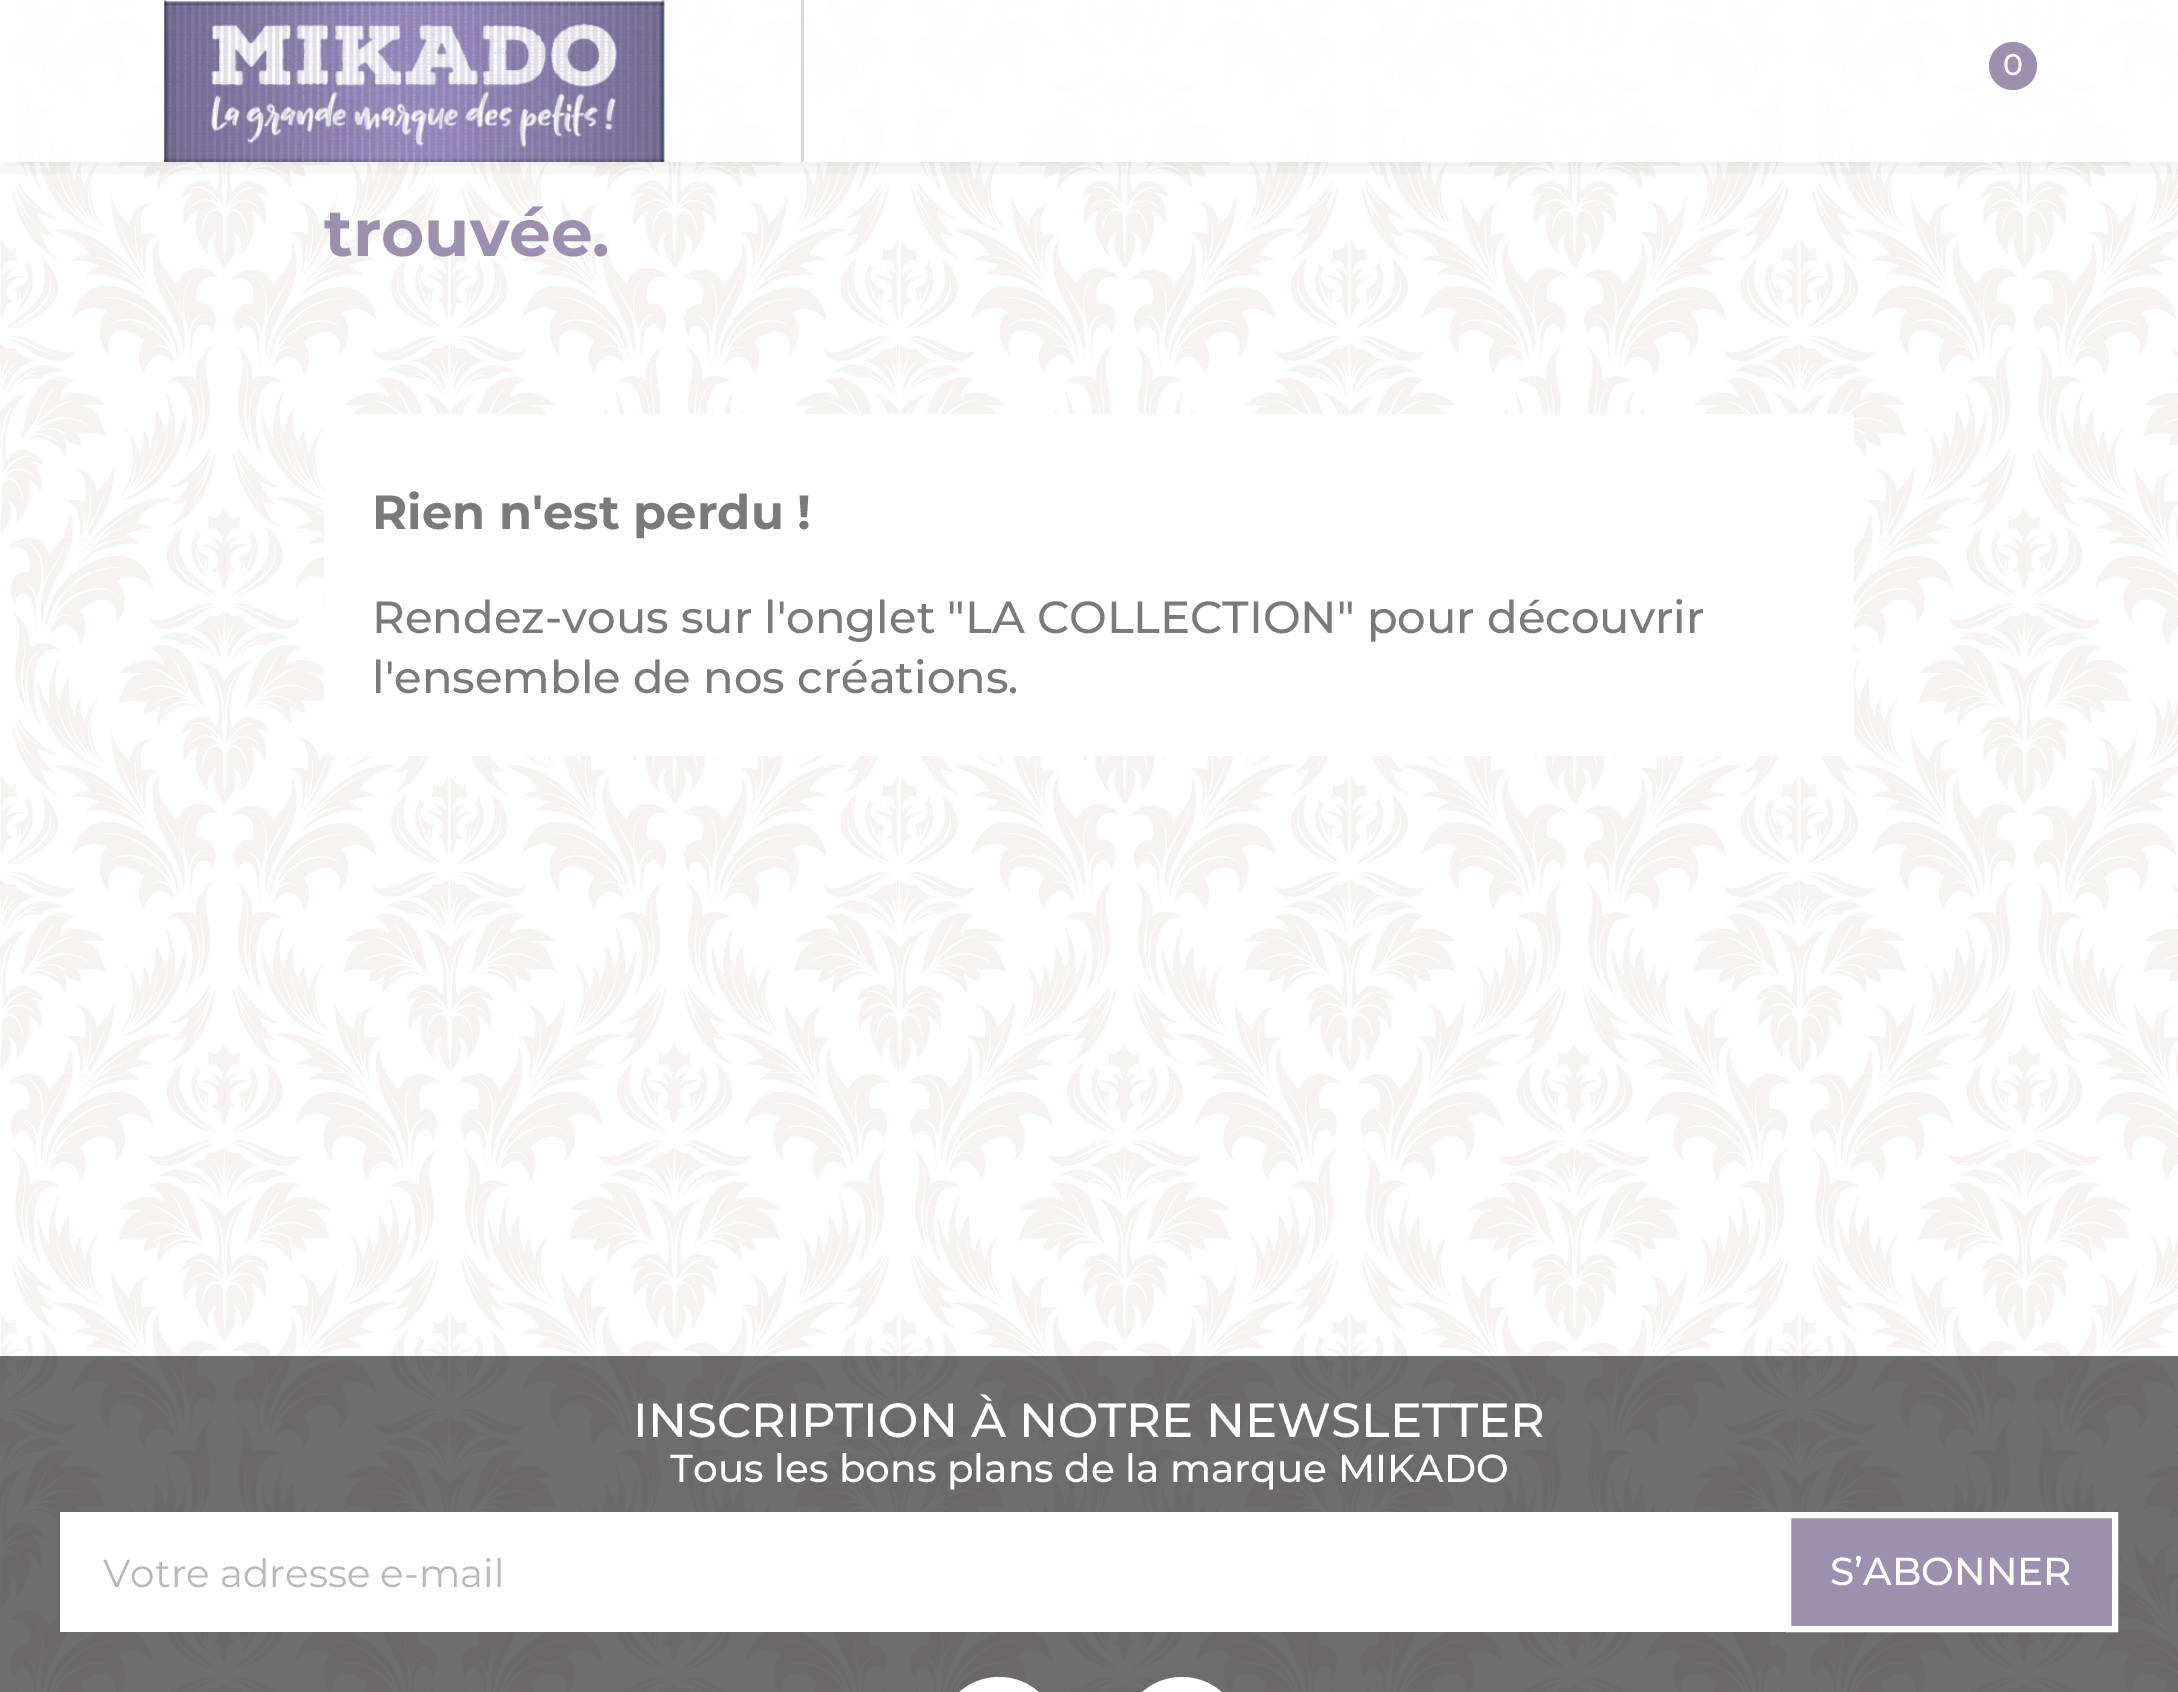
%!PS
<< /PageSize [2178 1692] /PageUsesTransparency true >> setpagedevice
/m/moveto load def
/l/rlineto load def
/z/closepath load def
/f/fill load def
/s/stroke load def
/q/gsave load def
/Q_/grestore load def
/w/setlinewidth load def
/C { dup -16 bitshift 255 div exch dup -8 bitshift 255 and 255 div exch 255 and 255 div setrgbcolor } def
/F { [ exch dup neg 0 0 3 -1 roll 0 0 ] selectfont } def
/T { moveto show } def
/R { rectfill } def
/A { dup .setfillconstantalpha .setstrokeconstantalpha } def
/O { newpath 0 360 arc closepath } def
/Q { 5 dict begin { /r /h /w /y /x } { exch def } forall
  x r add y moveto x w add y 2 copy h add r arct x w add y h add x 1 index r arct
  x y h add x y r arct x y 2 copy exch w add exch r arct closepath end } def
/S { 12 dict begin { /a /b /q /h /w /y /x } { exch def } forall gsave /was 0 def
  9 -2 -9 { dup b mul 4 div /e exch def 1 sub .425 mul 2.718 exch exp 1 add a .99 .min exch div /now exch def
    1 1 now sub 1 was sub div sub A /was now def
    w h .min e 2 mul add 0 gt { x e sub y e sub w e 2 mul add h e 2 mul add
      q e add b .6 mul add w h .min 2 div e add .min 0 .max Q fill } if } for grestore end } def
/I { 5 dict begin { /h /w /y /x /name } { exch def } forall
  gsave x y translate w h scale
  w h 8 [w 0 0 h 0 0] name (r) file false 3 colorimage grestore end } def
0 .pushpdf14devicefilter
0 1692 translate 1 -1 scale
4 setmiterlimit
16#FFFFFF C
0 0 2178 1692 R
(1.rgb) 0 0 2178 1692 I
q
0 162 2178 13 rectclip
16#000000 C
0 0 2178 162 0 15 .1 S
Q_
0.95 A
7 0 2171 162 R
1 A
(2.rgb) 164 0 502 162 I
16#D8D8D8 C
801 0 3 162 R
16#9D90AF C
2013 66 24 O f
/Montserrat-Medium 30 F
16#FFFFFF C
(0) 2003 75 T
/Montserrat-Bold 66 F
16#9D90AF C
(trouvée.) 324 256 T
16#FFFFFF C
324 414 1530 342 R
/Montserrat-Bold 48 F
16#7A7A7A C
(Rien n'est perdu !) 372 529 T
/Montserrat-Medium 45 F
(Rendez-vous sur l'onglet "LA COLLECTION" pour découvrir) 372 633 T
(l'ensemble de nos créations.) 372 693 T
0.6 A
16#0C0C0C C
0 1356 2178 336 R
/Montserrat-Medium 48 F
1 A
16#FFFFFF C
(INSCRIPTION À NOTRE NEWSLETTER) 633 1437 T
/Montserrat-Medium 39 F
(Tous les bons plans de la marque MIKADO) 670 1482 T
60 1512 1725 120 R
/Montserrat-Regular 39 F
16#B7B7B7 C
(Votre adresse e-mail) 103 1587 T
16#9D90AF C
1788 1515 m 327 0 l 0 114 l -327 0 l z q f Q_
16#FFFFFF C
6 w
s
/Montserrat-Medium 39 F
(S’ABONNER) 1830 1585 T
939 1677 120 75 60 Q f
1122 1677 120 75 60 Q f
.poppdf14devicefilter showpage
